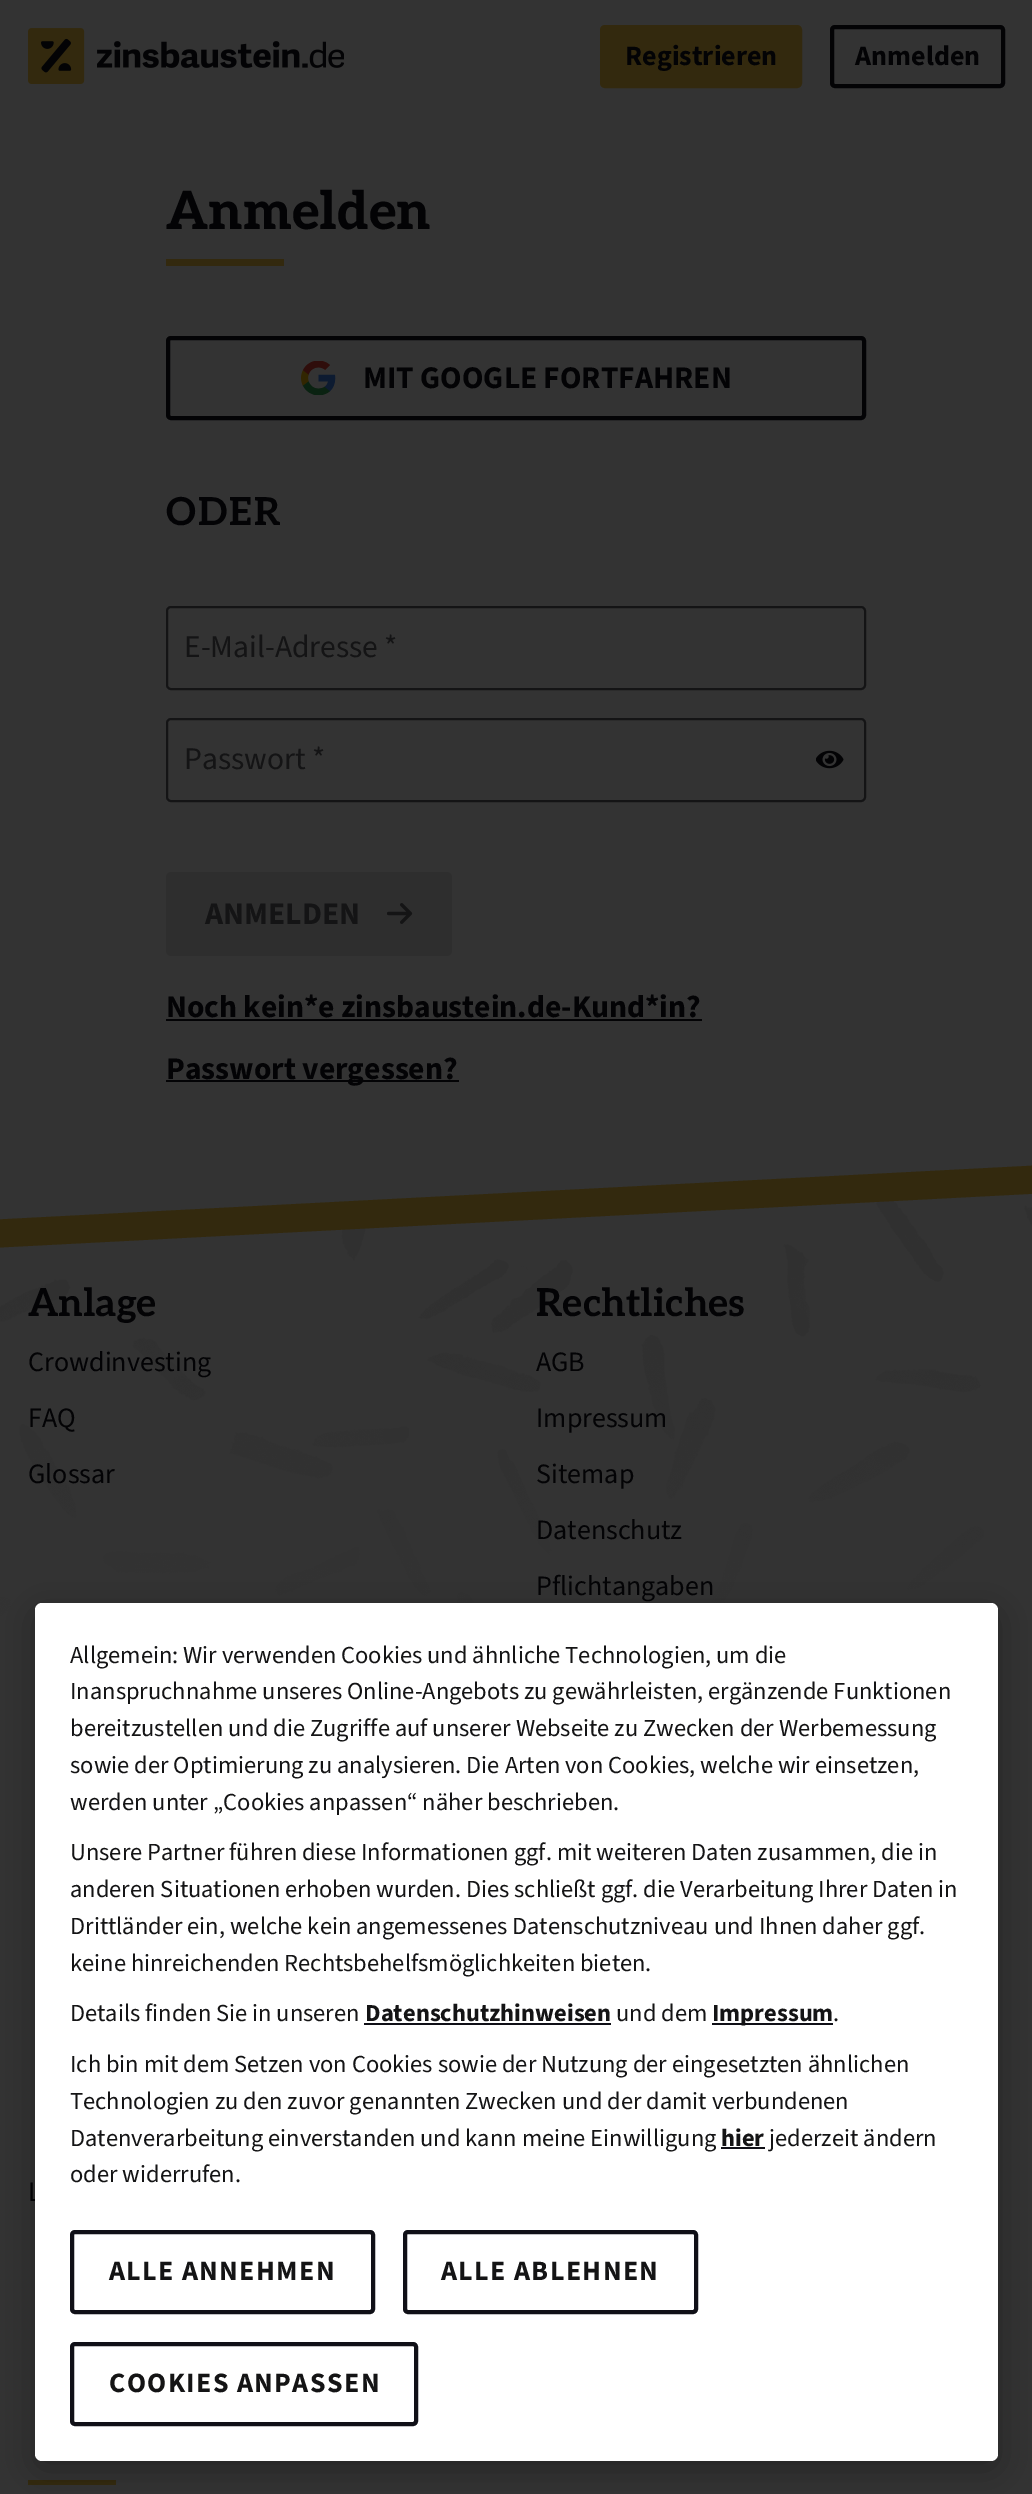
%!PS
<< /PageSize [1032 2494] /PageUsesTransparency true >> setpagedevice
/m/moveto load def
/l/rlineto load def
/z/closepath load def
/f/fill load def
/s/stroke load def
/q/gsave load def
/Q_/grestore load def
/w/setlinewidth load def
/C { dup -16 bitshift 255 div exch dup -8 bitshift 255 and 255 div exch 255 and 255 div setrgbcolor } def
/F { [ exch dup neg 0 0 3 -1 roll 0 0 ] selectfont } def
/T { moveto show } def
/R { rectfill } def
/A { dup .setfillconstantalpha .setstrokeconstantalpha } def
/Q { 5 dict begin { /r /h /w /y /x } { exch def } forall
  x r add y moveto x w add y 2 copy h add r arct x w add y h add x 1 index r arct
  x y h add x y r arct x y 2 copy exch w add exch r arct closepath end } def
/S { 12 dict begin { /a /b /q /h /w /y /x } { exch def } forall gsave /was 0 def
  9 -2 -9 { dup b mul 4 div /e exch def 1 sub .425 mul 2.718 exch exp 1 add a .99 .min exch div /now exch def
    1 1 now sub 1 was sub div sub A /was now def
    w h .min e 2 mul add 0 gt { x e sub y e sub w e 2 mul add h e 2 mul add
      q e add b .6 mul add w h .min 2 div e add .min 0 .max Q fill } if } for grestore end } def
/I { 5 dict begin { /h /w /y /x /name } { exch def } forall
  gsave x y translate w h scale
  w h 8 [w 0 0 h 0 0] name (r) file false 3 colorimage grestore end } def
0 .pushpdf14devicefilter
0 2494 translate 1 -1 scale
4 setmiterlimit
16#333333 C
0 0 1032 2494 R
(1.rgb) 28 28 316 56 I
16#33290E C
602 27 198 59 3 Q q f Q_
4 w
s
/SourceSans3-Bold 28 F
16#030305 C
(Registrieren) 625 65 T
832 27 171 59 3 Q s
(Anmelden) 855 65 T
/Aleo-ExtraBold 52.5 F
(Anmelden) 166 229 T
16#33290E C
166 259 118 7 R
16#030305 C
168 338 696 80 3 Q s
(2.rgb) 301 361 35 35 I
/SourceSans3-Bold 31.5 F
(MIT GOOGLE FORTFAHREN) 363 388 T
/Aleo-Bold 38.5 F
166 525 m 2 0 (ODER) ashow
16#141415 C
2 w
167 607 698 82 4 Q s
/SourceSans3-Regular 31.5 F
(E-Mail-Adresse *) 184 657 T
167 719 698 82 4 Q s
(Passwort *) 184 769 T
(3.rgb) 816 750 28 19 I
16#2E2E2E C
166 872 286 84 5 Q f
/SourceSans3-Bold 31.5 F
16#141415 C
(ANMELDEN) 205 924 T
(4.rgb) 387 903 26 21 I
16#030305 C
(Noch kein*e zinsbaustein.de-Kund*in?) 166 1017 T
166 1019 536 2 R
166 1080 293 2 R
(Passwort vergessen?) 166 1079 T
(5.rgb) 0 1193 1032 460 I
16#33290E C
-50 1222 m 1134 -59 l 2 28 l -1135 59 l z f
/Aleo-Bold 38.5 F
16#030305 C
(Anlage) 28 1316 T
/SourceSans3-Regular 28 F
(Crowdinvesting) 28 1371 T
(FAQ) 28 1427 T
(Glossar) 28 1483 T
/Aleo-Bold 38.5 F
(Rechtliches) 536 1316 T
/SourceSans3-Regular 28 F
(AGB) 536 1371 T
(Impressum) 536 1427 T
(Sitemap) 536 1483 T
(Datenschutz) 536 1539 T
(Pflichtangaben) 536 1595 T
(L) 28 2201 T
16#33290E C
28 2480 88 5 R
16#000000 C
35 1612 963 857 7 17.5 .3 S
16#FFFFFF C
35 1603 963 858 7 Q f
/SourceSans3-Regular 24.5 F
16#141415 C
(Allgemein: Wir verwenden Cookies und ähnliche Technologien, um die) 70 1663 T
(Inanspruchnahme unseres Online-Angebots zu gewährleisten, ergänzende Funktionen) 70 1699 T
(bereitzustellen und die Zugriffe auf unserer Webseite zu Zwecken der Werbemessung) 70 1736 T
(sowie der Optimierung zu analysieren. Die Arten von Cookies, welche wir einsetzen,) 70 1773 T
(werden unter „Cookies anpassen“ näher beschrieben.) 70 1810 T
(Unsere Partner führen diese Informationen ggf. mit weiteren Daten zusammen, die in) 70 1860 T
(anderen Situationen erhoben wurden. Dies schließt ggf. die Verarbeitung Ihrer Daten in) 70 1897 T
(Drittländer ein, welche kein angemessenes Datenschutzniveau und Ihnen daher ggf.) 70 1934 T
(keine hinreichenden Rechtsbehelfsmöglichkeiten bieten.) 70 1971 T
(Details finden Sie in unseren) 70 2021 T
/SourceSans3-Bold 24.5 F
(Datenschutzhinweisen) 365 2021 T
16#101017 C
364 2023 247 2 R
/SourceSans3-Regular 24.5 F
16#141415 C
(und dem) 616 2021 T
16#101017 C
712 2023 121 2 R
/SourceSans3-Bold 24.5 F
16#141415 C
(Impressum) 712 2021 T
/SourceSans3-Regular 24.5 F
(.) 833 2021 T
(Ich bin mit dem Setzen von Cookies sowie der Nutzung der eingesetzten ähnlichen) 70 2072 T
(Technologien zu den zuvor genannten Zwecken und der damit verbundenen) 70 2109 T
(Datenverarbeitung einverstanden und kann meine Einwilligung) 70 2146 T
/SourceSans3-Bold 24.5 F
(hier) 721 2146 T
16#101017 C
721 2147 44 2 R
/SourceSans3-Regular 24.5 F
16#141415 C
(jederzeit ändern) 769 2146 T
(oder widerrufen.) 70 2182 T
16#101017 C
4 w
72 2232 301 80 3 Q s
/SourceSans3-Bold 28 F
16#141415 C
109 2280 m 1.4 0 (ALLE ANNEHMEN) ashow
16#101017 C
405 2232 291 80 3 Q s
16#141415 C
441 2280 m 1.4 0 (ALLE ABLEHNEN) ashow
16#101017 C
72 2344 344 80 3 Q s
16#141415 C
109 2392 m 1.4 0 (COOKIES ANPASSEN) ashow
.poppdf14devicefilter showpage
